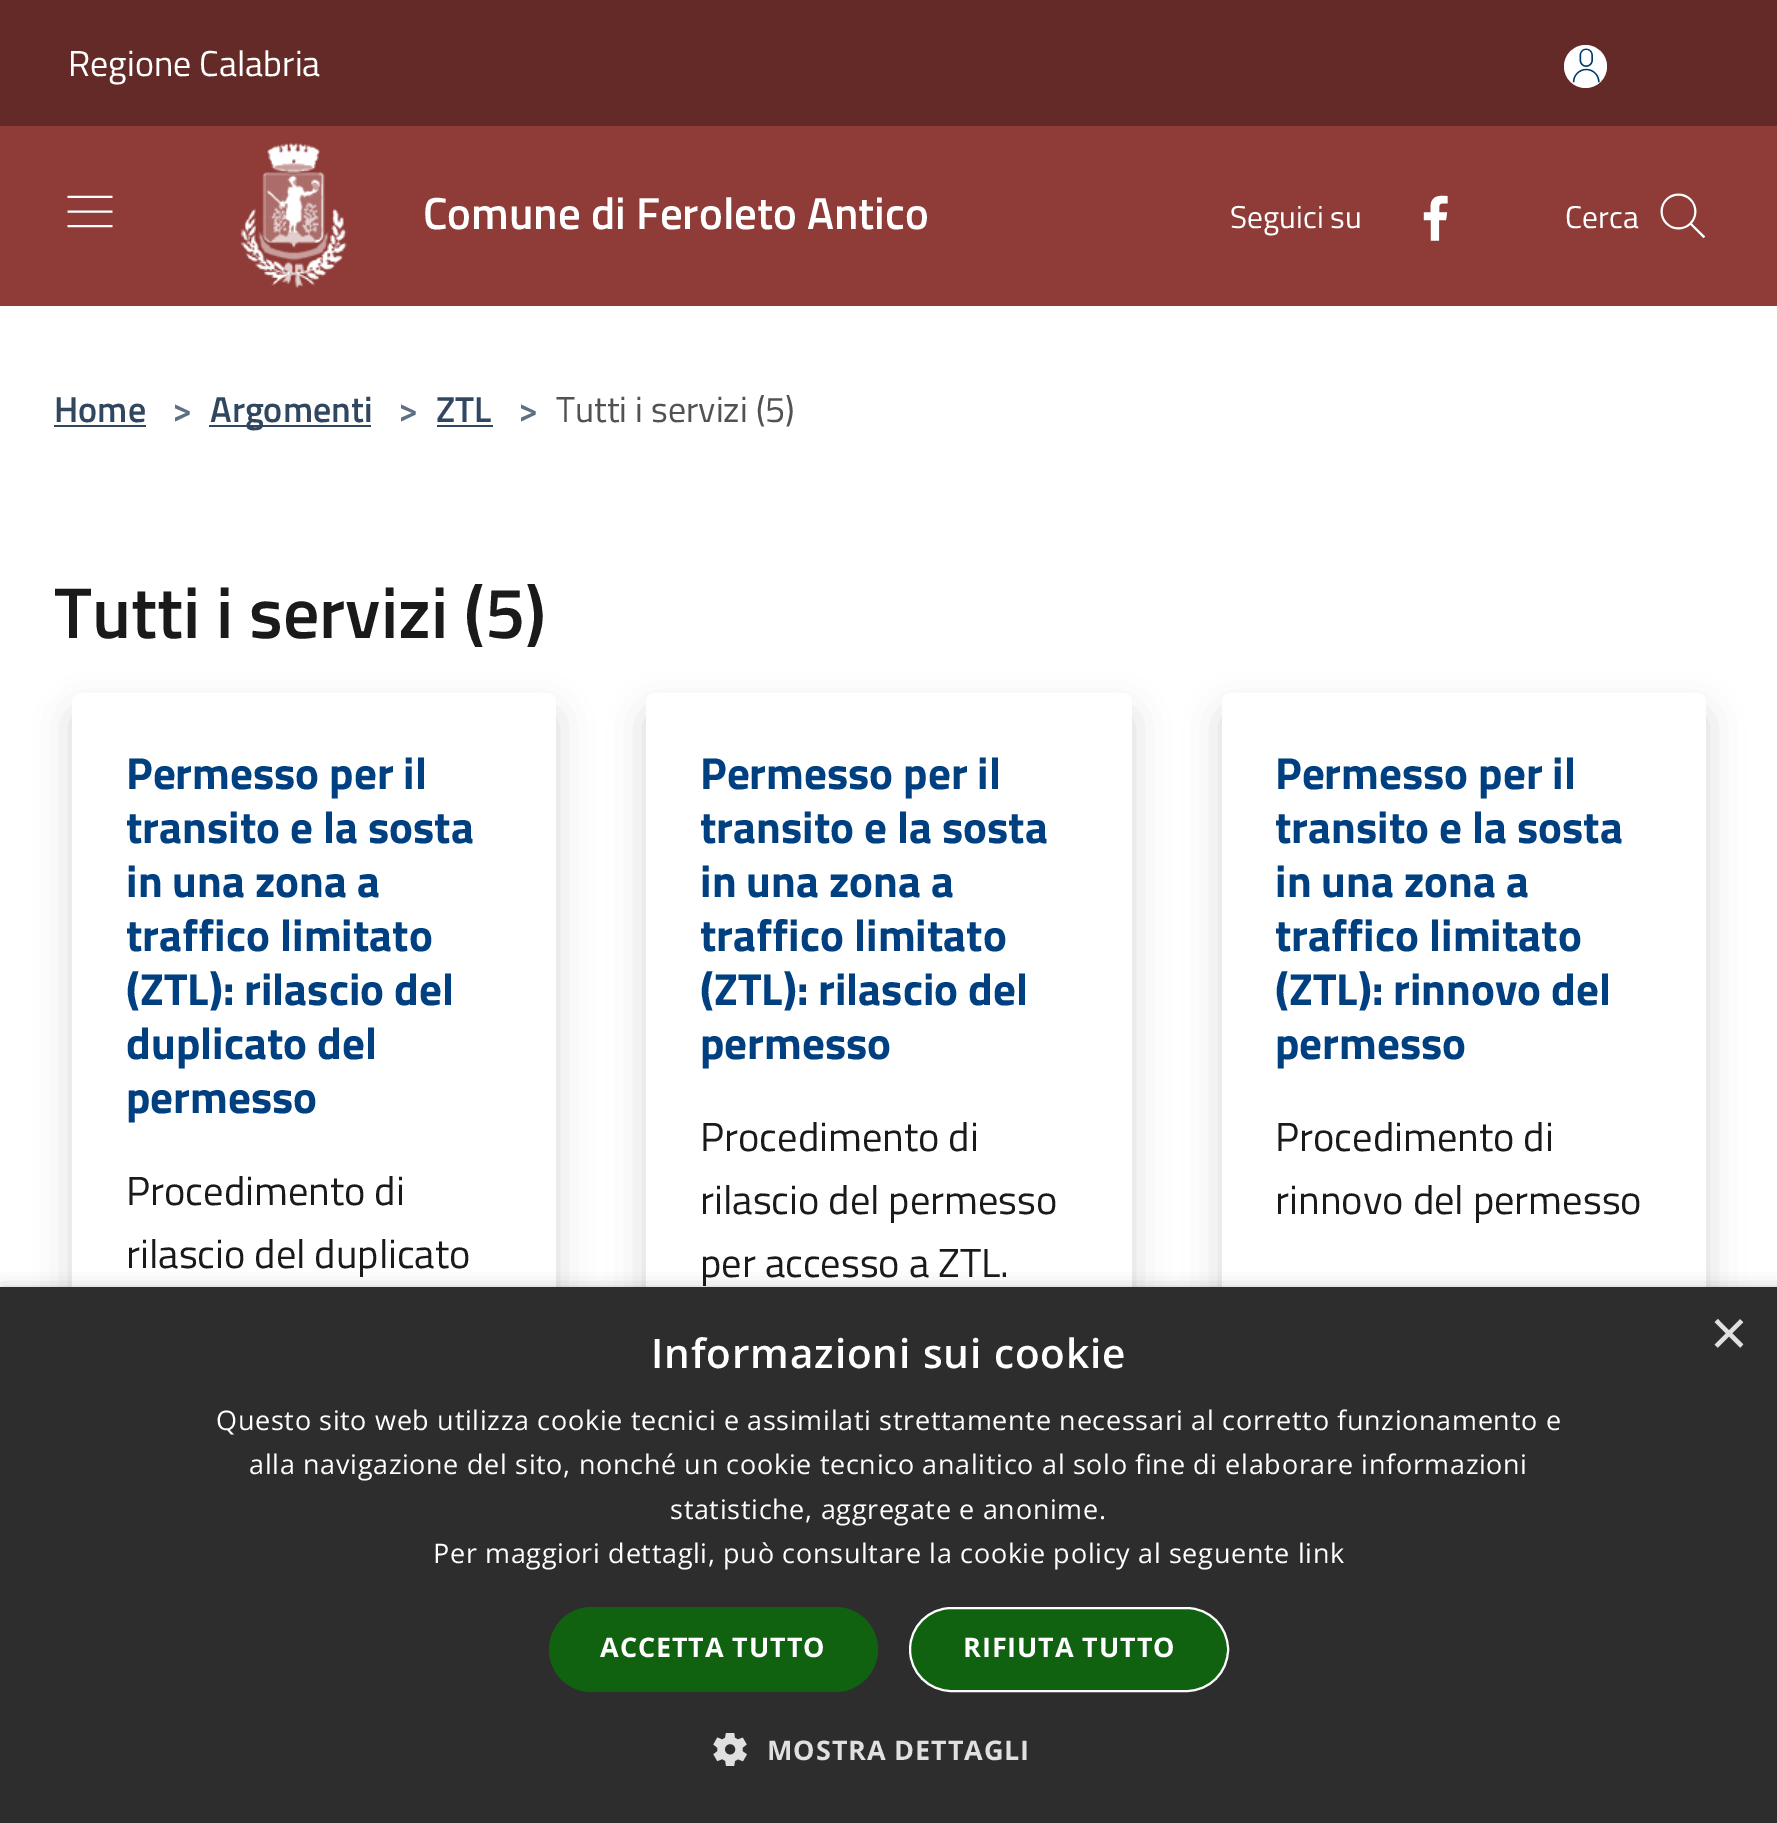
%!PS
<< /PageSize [1777 1823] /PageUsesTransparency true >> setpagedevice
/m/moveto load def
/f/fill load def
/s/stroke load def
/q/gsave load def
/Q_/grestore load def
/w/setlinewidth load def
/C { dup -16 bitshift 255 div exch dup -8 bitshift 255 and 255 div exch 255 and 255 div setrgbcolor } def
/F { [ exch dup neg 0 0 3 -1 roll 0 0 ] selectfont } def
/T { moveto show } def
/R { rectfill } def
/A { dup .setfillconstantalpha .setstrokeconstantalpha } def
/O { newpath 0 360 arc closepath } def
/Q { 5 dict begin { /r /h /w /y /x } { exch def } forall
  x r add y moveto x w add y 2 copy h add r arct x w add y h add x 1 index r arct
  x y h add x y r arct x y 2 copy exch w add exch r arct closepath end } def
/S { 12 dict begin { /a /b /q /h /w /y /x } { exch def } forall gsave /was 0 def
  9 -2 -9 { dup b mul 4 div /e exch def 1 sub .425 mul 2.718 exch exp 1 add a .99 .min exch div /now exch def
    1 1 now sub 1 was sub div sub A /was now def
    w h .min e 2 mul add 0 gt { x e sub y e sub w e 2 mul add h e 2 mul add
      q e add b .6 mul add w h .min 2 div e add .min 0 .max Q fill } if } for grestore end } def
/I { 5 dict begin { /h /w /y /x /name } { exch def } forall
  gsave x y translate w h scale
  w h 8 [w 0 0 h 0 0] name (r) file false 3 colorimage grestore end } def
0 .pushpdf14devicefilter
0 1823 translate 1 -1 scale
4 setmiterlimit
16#FFFFFF C
0 0 1777 1823 R
16#642A27 C
0 0 1777 126 R
/TitilliumWeb-Regular 36 F
16#FFFFFF C
(Regione Calabria) 68 76 T
1585.5 66.5 21.5 O f
(1.rgb) 1572 48 28 35 I
16#8F3C38 C
0 126 1777 180 R
(2.rgb) 67 195 46 33 I
(3.rgb) 240 143 107 145 I
/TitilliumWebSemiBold-SemiBold 45 F
16#FFFFFF C
(Comune di Feroleto Antico) 423 229 T
/TitilliumWeb-Regular 31.5 F
(Seguici su) 1230 228 T
(4.rgb) 1423 195 25 46 I
(Cerca) 1565 228 T
(5.rgb) 1660 193 46 46 I
/TitilliumWebSemiBold-SemiBold 36 F
16#30475F C
(Home) 54 422 T
54 425 92 2 R
16#5D7083 C
(>) 172 422 T
16#30475F C
209 425 162 2 R
(Argomenti) 210 422 T
16#5D7083 C
(>) 398 422 T
16#30475F C
(ZTL) 436 422 T
437 425 56 2 R
16#5D7083 C
(>) 518 422 T
/TitilliumWeb-Regular 36 F
16#525252 C
(Tutti i servizi \(5\)) 556 422 T
/TitilliumWebSemiBold-SemiBold 72 F
16#1A1A1A C
(Tutti i servizi \(5\)) 54 638 T
16#000000 C
72 711 484 911 9 18 .15 S
16#FFFFFF C
72 693 484 911 9 Q f
/TitilliumWeb-Bold 45 F
16#004080 C
(Permesso per il) 126 789 T
(transito e la sosta) 126 843 T
(in una zona a) 126 897 T
(traffico limitato) 126 951 T
(\(ZTL\): rilascio del) 126 1005 T
(duplicato del) 126 1059 T
(permesso) 126 1113 T
/TitilliumWeb-Regular 40.5 F
16#1A1A1A C
(Procedimento di) 126 1205 T
(rilascio del duplicato) 126 1268 T
16#000000 C
646 711 486 911 9 18 .15 S
16#FFFFFF C
646 693 486 911 9 Q f
/TitilliumWeb-Bold 45 F
16#004080 C
(Permesso per il) 700 789 T
(transito e la sosta) 700 843 T
(in una zona a) 700 897 T
(traffico limitato) 700 951 T
(\(ZTL\): rilascio del) 700 1005 T
(permesso) 700 1059 T
/TitilliumWeb-Regular 40.5 F
16#1A1A1A C
(Procedimento di) 700 1151 T
(rilascio del permesso) 700 1214 T
(per accesso a ZTL.) 700 1277 T
16#000000 C
1222 711 484 911 9 18 .15 S
16#FFFFFF C
1222 693 484 911 9 Q f
/TitilliumWeb-Bold 45 F
16#004080 C
(Permesso per il) 1275 789 T
(transito e la sosta) 1275 843 T
(in una zona a) 1275 897 T
(traffico limitato) 1275 951 T
(\(ZTL\): rinnovo del) 1275 1005 T
(permesso) 1275 1059 T
/TitilliumWeb-Regular 40.5 F
16#1A1A1A C
(Procedimento di) 1275 1151 T
(rinnovo del permesso) 1275 1214 T
16#000000 C
2 1292 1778 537 0 9 .35 S
16#2D2D2D C
0 1287 1777 536 R
/LiberationSans-Regular 65 F
16#E0E0E0 C
(×) 1710 1355 T
/OpenSans-SemiBold 40.5 F
16#FFFFFF C
651 1368 m .9 0 (Informazioni sui cookie) ashow
/OpenSans-Regular 27 F
216 1430 m .67 0 (Questo sito web utilizza cookie tecnici e assimilati strettamente necessari al corretto funzionamento e) ashow
249 1474 m .67 0 (alla navigazione del sito, nonché un cookie tecnico analitico al solo fine di elaborare informazioni) ashow
670 1519 m .67 0 (statistiche, aggregate e anonime.) ashow
433 1563 m .67 0 (Per maggiori dettagli, può consultare la cookie policy al seguente link) ashow
16#106110 C
549 1607 329 85 42.5 Q f
/OpenSans-Bold 27 F
16#FFFFFF C
600 1657 m .9 0 (ACCETTA TUTTO) ashow
16#106110 C
910 1608 318 83 41.5 Q q f Q_
16#FFFFFF C
2 w
s
963 1657 m .9 0 (RIFIUTA TUTTO) ashow
(6.rgb) 713 1733 34 33 I
16#E0E0E0 C
767 1760 m .9 0 (MOSTRA DETTAGLI) ashow
.poppdf14devicefilter showpage
